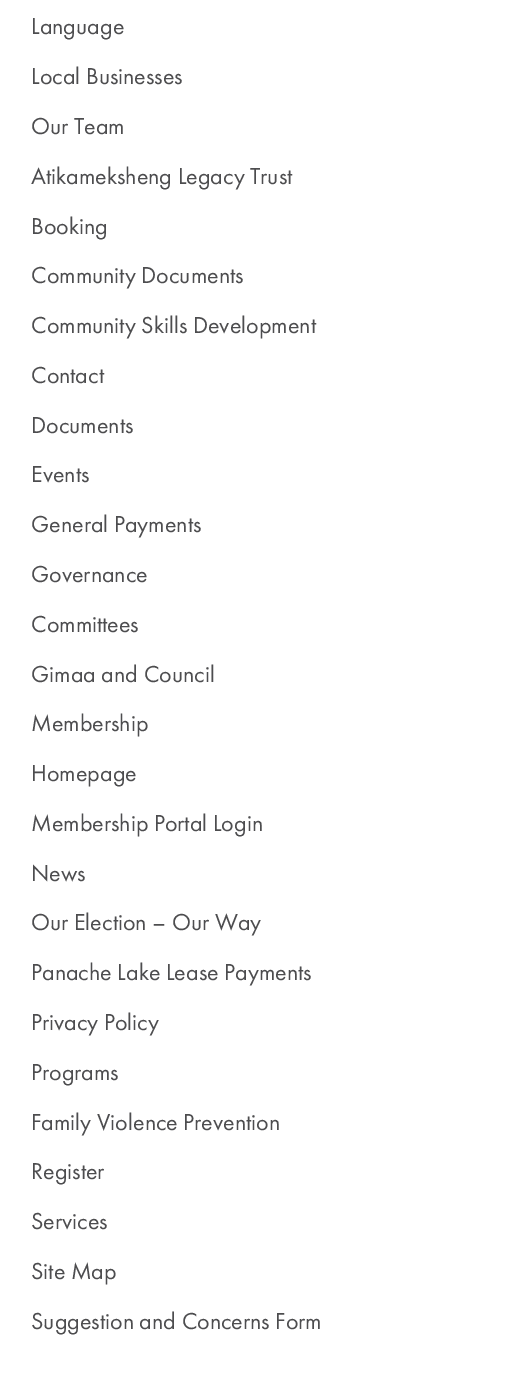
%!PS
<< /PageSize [506 1375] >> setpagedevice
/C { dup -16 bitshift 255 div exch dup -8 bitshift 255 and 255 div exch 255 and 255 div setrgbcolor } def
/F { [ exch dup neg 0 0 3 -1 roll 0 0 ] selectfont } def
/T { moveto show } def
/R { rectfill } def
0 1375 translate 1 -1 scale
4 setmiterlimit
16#FFFFFF C
0 0 506 1375 R
/FuturaPT-Regular 24 F
16#4D4D4F C
(Language) 31 34 T
(Local Businesses) 31 84 T
(Our Team) 31 134 T
(Atikameksheng Legacy Trust) 31 184 T
(Booking) 31 234 T
(Community Documents) 31 283 T
(Community Skills Development) 31 333 T
(Contact) 31 383 T
(Documents) 31 433 T
(Events) 31 482 T
(General Payments) 31 532 T
(Governance) 31 582 T
(Committees) 31 632 T
(Gimaa and Council) 31 682 T
(Membership) 31 731 T
(Homepage) 31 781 T
(Membership Portal Login) 31 831 T
(News) 31 881 T
(Our Election – Our Way) 31 930 T
(Panache Lake Lease Payments) 31 980 T
(Privacy Policy) 31 1030 T
(Programs) 31 1080 T
(Family Violence Prevention) 31 1130 T
(Register) 31 1179 T
(Services) 31 1229 T
(Site Map) 31 1279 T
(Suggestion and Concerns Form) 31 1329 T
showpage
